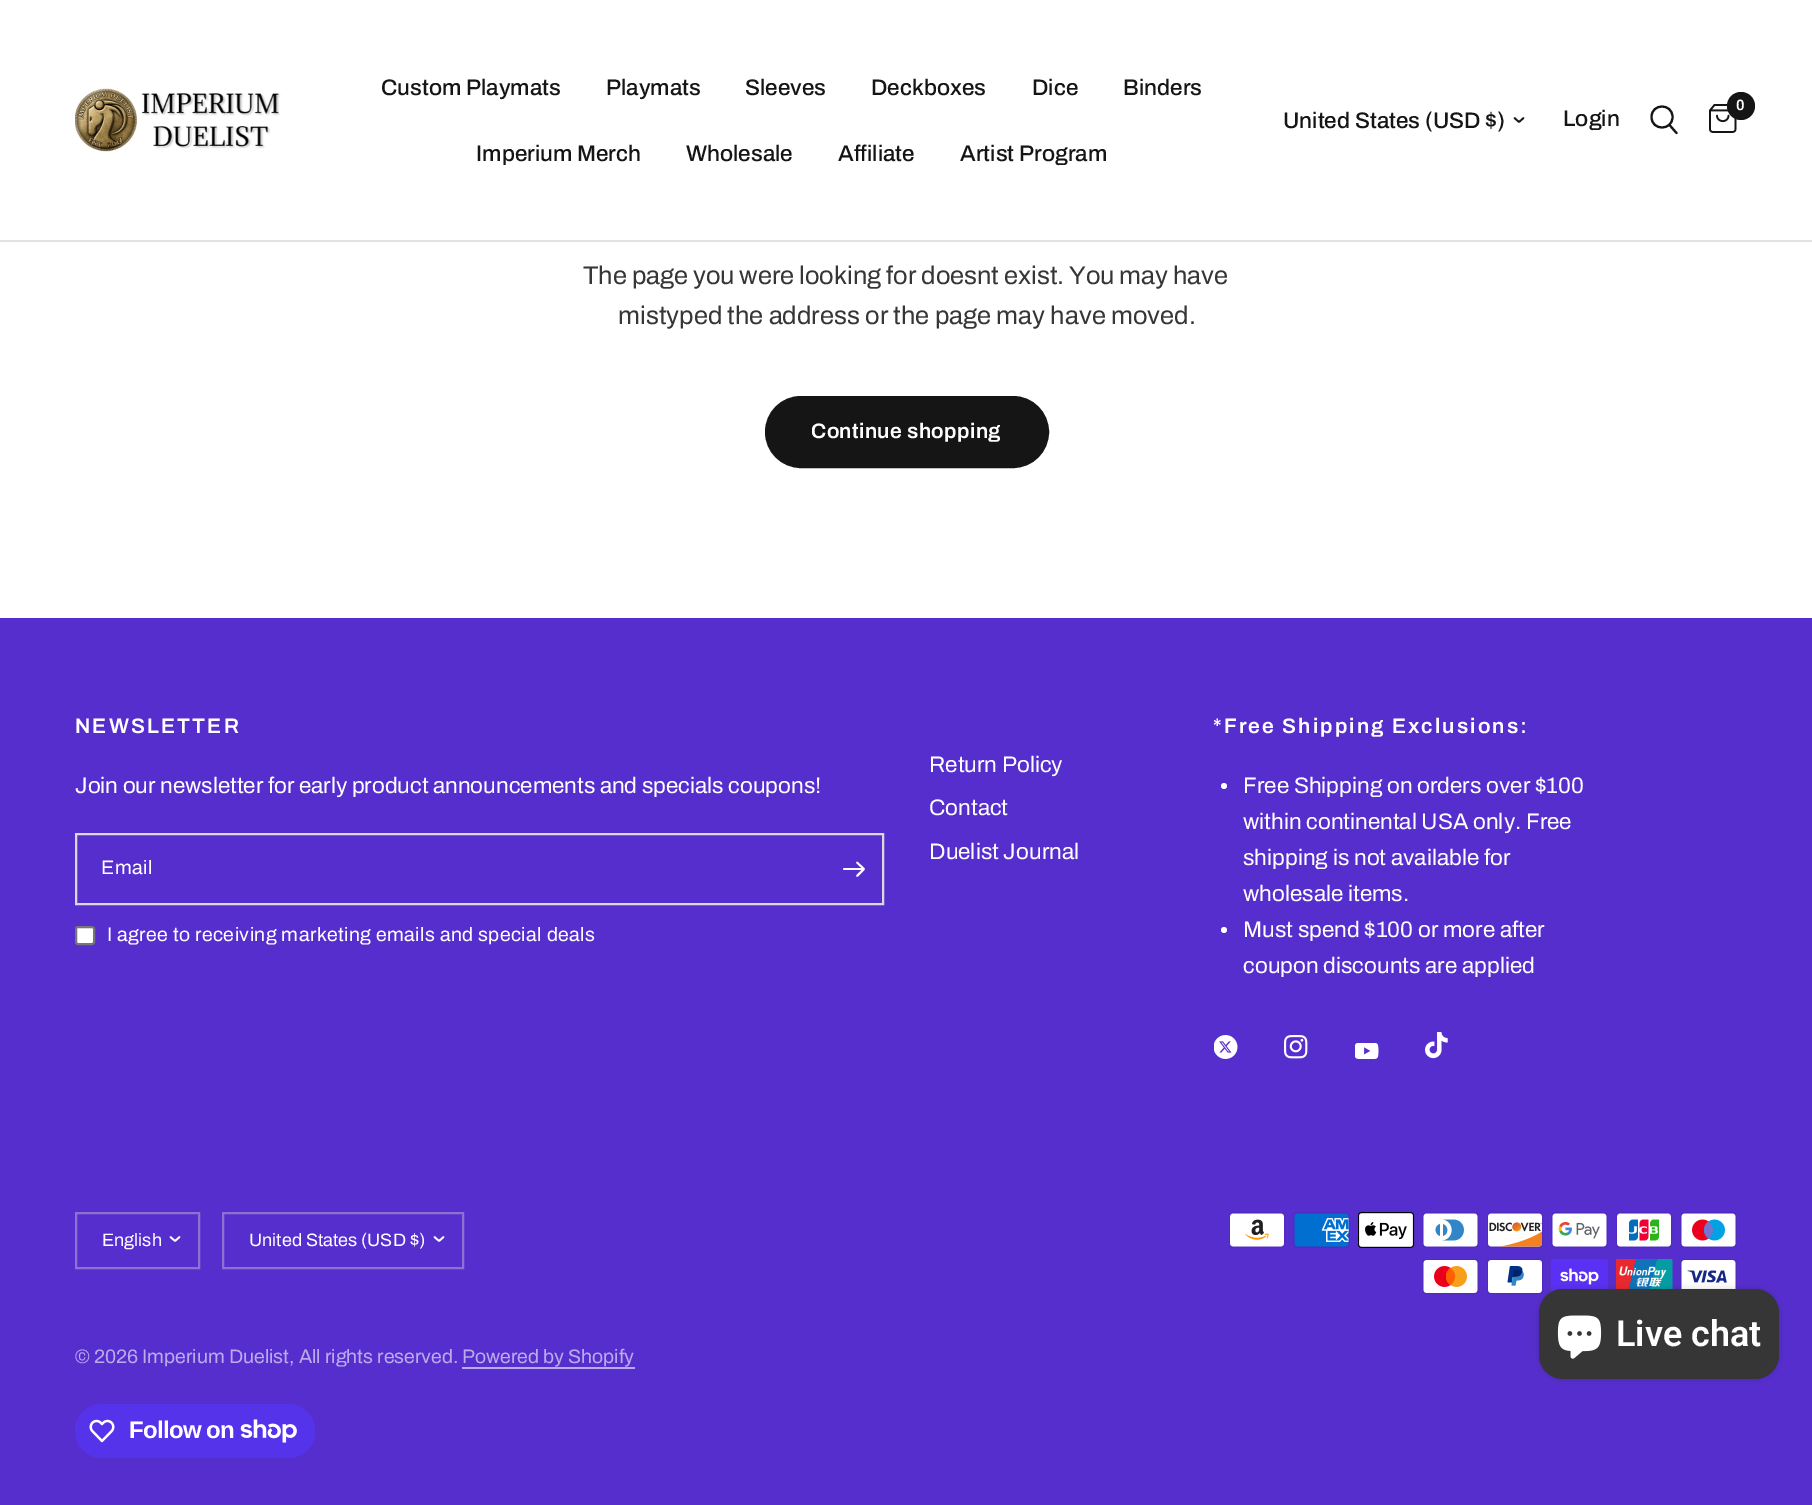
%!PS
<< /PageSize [1812 1505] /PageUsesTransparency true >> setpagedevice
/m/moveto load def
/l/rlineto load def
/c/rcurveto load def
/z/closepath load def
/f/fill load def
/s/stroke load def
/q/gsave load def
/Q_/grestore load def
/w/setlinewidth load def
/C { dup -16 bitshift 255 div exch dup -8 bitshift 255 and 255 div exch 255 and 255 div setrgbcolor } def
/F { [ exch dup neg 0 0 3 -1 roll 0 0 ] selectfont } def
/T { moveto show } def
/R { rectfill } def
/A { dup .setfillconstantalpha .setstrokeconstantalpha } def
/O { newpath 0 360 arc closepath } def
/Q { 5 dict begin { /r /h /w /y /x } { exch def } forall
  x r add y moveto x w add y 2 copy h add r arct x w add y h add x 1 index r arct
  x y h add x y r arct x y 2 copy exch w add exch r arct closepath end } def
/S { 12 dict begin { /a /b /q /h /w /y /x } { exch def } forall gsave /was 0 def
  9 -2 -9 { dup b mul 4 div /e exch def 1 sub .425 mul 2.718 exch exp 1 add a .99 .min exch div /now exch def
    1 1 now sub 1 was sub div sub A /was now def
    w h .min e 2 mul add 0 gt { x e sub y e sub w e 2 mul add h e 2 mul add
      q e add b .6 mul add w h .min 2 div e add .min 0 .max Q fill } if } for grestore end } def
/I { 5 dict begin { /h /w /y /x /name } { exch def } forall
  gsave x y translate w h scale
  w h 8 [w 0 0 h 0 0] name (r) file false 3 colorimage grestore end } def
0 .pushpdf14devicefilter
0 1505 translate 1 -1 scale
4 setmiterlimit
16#FFFFFF C
0 0 1812 1505 R
16#E2E2E2 C
0 240 1812 2 R
(1.rgb) 75 88 206 64 I
/Archivo-Medium 22.5 F
16#151515 C
(Custom Playmats) 381 95 T
(Playmats) 606 95 T
(Sleeves) 745 95 T
(Deckboxes) 871 95 T
(Dice) 1032 95 T
(Binders) 1123 95 T
(Imperium Merch) 476 161 T
(Wholesale) 686 161 T
(Affiliate) 838 161 T
(Artist Program) 960 161 T
(United States \(USD $\)) 1283 128 T
1.7 w
1 setlinecap
1 setlinejoin
1523.5 118 m -4.5 4 l -4.5 -4 l s
(Login) 1563 126 T
2.1 w
1669.5 125 m 7 8 l 1672.5 117 m 0 14 -21 14 -21 0 c 0 -14 21 -14 21 0 c z s
(2.rgb) 1709 104 28 29 I
1741 106 14 O f
/Archivo-SemiBold 15 F
16#FFFFFF C
(0) 1736 110 T
/Archivo-Regular 25.5 F
16#363636 C
583 284 m -.5 0 32 (The page you were looking for doesnt exist. You may have) widthshow
(mistyped the address or the page may have moved.) 618 324 T
16#151515 C
766 397 282 70 35 Q q f Q_
2 w
0 setlinecap
0 setlinejoin
s
/Archivo-SemiBold 21 F
16#FFFFFF C
811 438 m .4 0 (Continue shopping) ashow
16#572ECE C
0 618 1812 887 R
16#FFFFFF C
75 733 m 2.1 0 (NEWSLETTER) ashow
/Archivo-Regular 22.5 F
75 793 m -.25 0 32 (Join our newsletter for early product announcements and specials coupons!) widthshow
16#D9D9D9 C
76 834 807 70 rectstroke
/Archivo-Regular 19.5 F
16#FFFFFF C
101 874 m .4 0 (Email) ashow
1.8 w
1 setlinecap
1 setlinejoin
844 869 m 18 0 l 857 862.5 m 7 6.5 l -7 7 l s
76 927 18 17 2 Q q f Q_
16#767676 C
2 w
0 setlinecap
0 setlinejoin
s
16#FFFFFF C
107 941 m .4 0 (I agree to receiving marketing emails and special deals) ashow
/Archivo-Regular 22.5 F
(Return Policy) 929 772 T
(Contact) 929 815 T
(Duelist Journal) 929 859 T
/Archivo-SemiBold 21 F
1213 733 m 2.1 0 (*Free Shipping Exclusions:) ashow
1224 786 3 O f
/Archivo-Regular 22.5 F
(Free Shipping on orders over $100) 1243 793 T
(within continental USA only. Free) 1243 829 T
(shipping is not available for) 1243 865 T
(wholesale items.) 1243 901 T
1224 930 3 O f
(Must spend $100 or more after) 1243 937 T
(coupon discounts are applied) 1243 973 T
(3.rgb) 1214 1035 24 24 I
(4.rgb) 1284 1035 24 24 I
(5.rgb) 1355 1043 24 16 I
(6.rgb) 1425 1032 23 27 I
16#8B72D2 C
76 1213 123 55 rectstroke
/Archivo-Regular 18 F
16#FFFFFF C
(English) 102 1246 T
1.7 w
1 setlinecap
1 setlinejoin
179.5 1237 m -4.5 4 l -4.5 -4 l s
16#8B72D2 C
2 w
0 setlinecap
0 setlinejoin
223 1213 240 55 rectstroke
16#FFFFFF C
(United States \(USD $\)) 249 1246 T
1.7 w
1 setlinecap
1 setlinejoin
443.5 1237 m -4.5 4 l -4.5 -4 l s
(7.rgb) 1229 1212 57 36 I
(8.rgb) 1293 1212 57 36 I
(9.rgb) 1358 1212 57 36 I
(10.rgb) 1422 1212 57 36 I
(11.rgb) 1487 1212 57 36 I
(12.rgb) 1551 1212 57 36 I
(13.rgb) 1616 1212 57 36 I
(14.rgb) 1680 1212 57 36 I
(15.rgb) 1422 1259 57 36 I
(16.rgb) 1487 1259 57 36 I
(17.rgb) 1551 1259 57 34 I
(18.rgb) 1616 1259 57 30 I
(19.rgb) 1680 1259 57 30 I
/Archivo-Regular 19.5 F
16#BCABEB C
(© 2026 Imperium Duelist, All rights reserved.) 75 1363 T
(Powered by Shopify) 462 1363 T
462 1367 173 2 R
16#5433EB C
75 1404 240 54 27 Q f
(20.rgb) 89 1419 26 24 I
/LiberationSans-Bold 24 F
16#FFFFFF C
129 1438 m -.75 0 (Follow on) ashow
(21.rgb) 240 1419 57 24 I
16#000000 C
1539 1289 240 90 24 4 .15 S
16#363636 C
1539 1289 240 90 24 Q f
(22.rgb) 1557 1315 45 44 I
/Roboto-SemiBold 36 F
16#FFFFFF C
(Live chat) 1616 1346 T
.poppdf14devicefilter showpage
